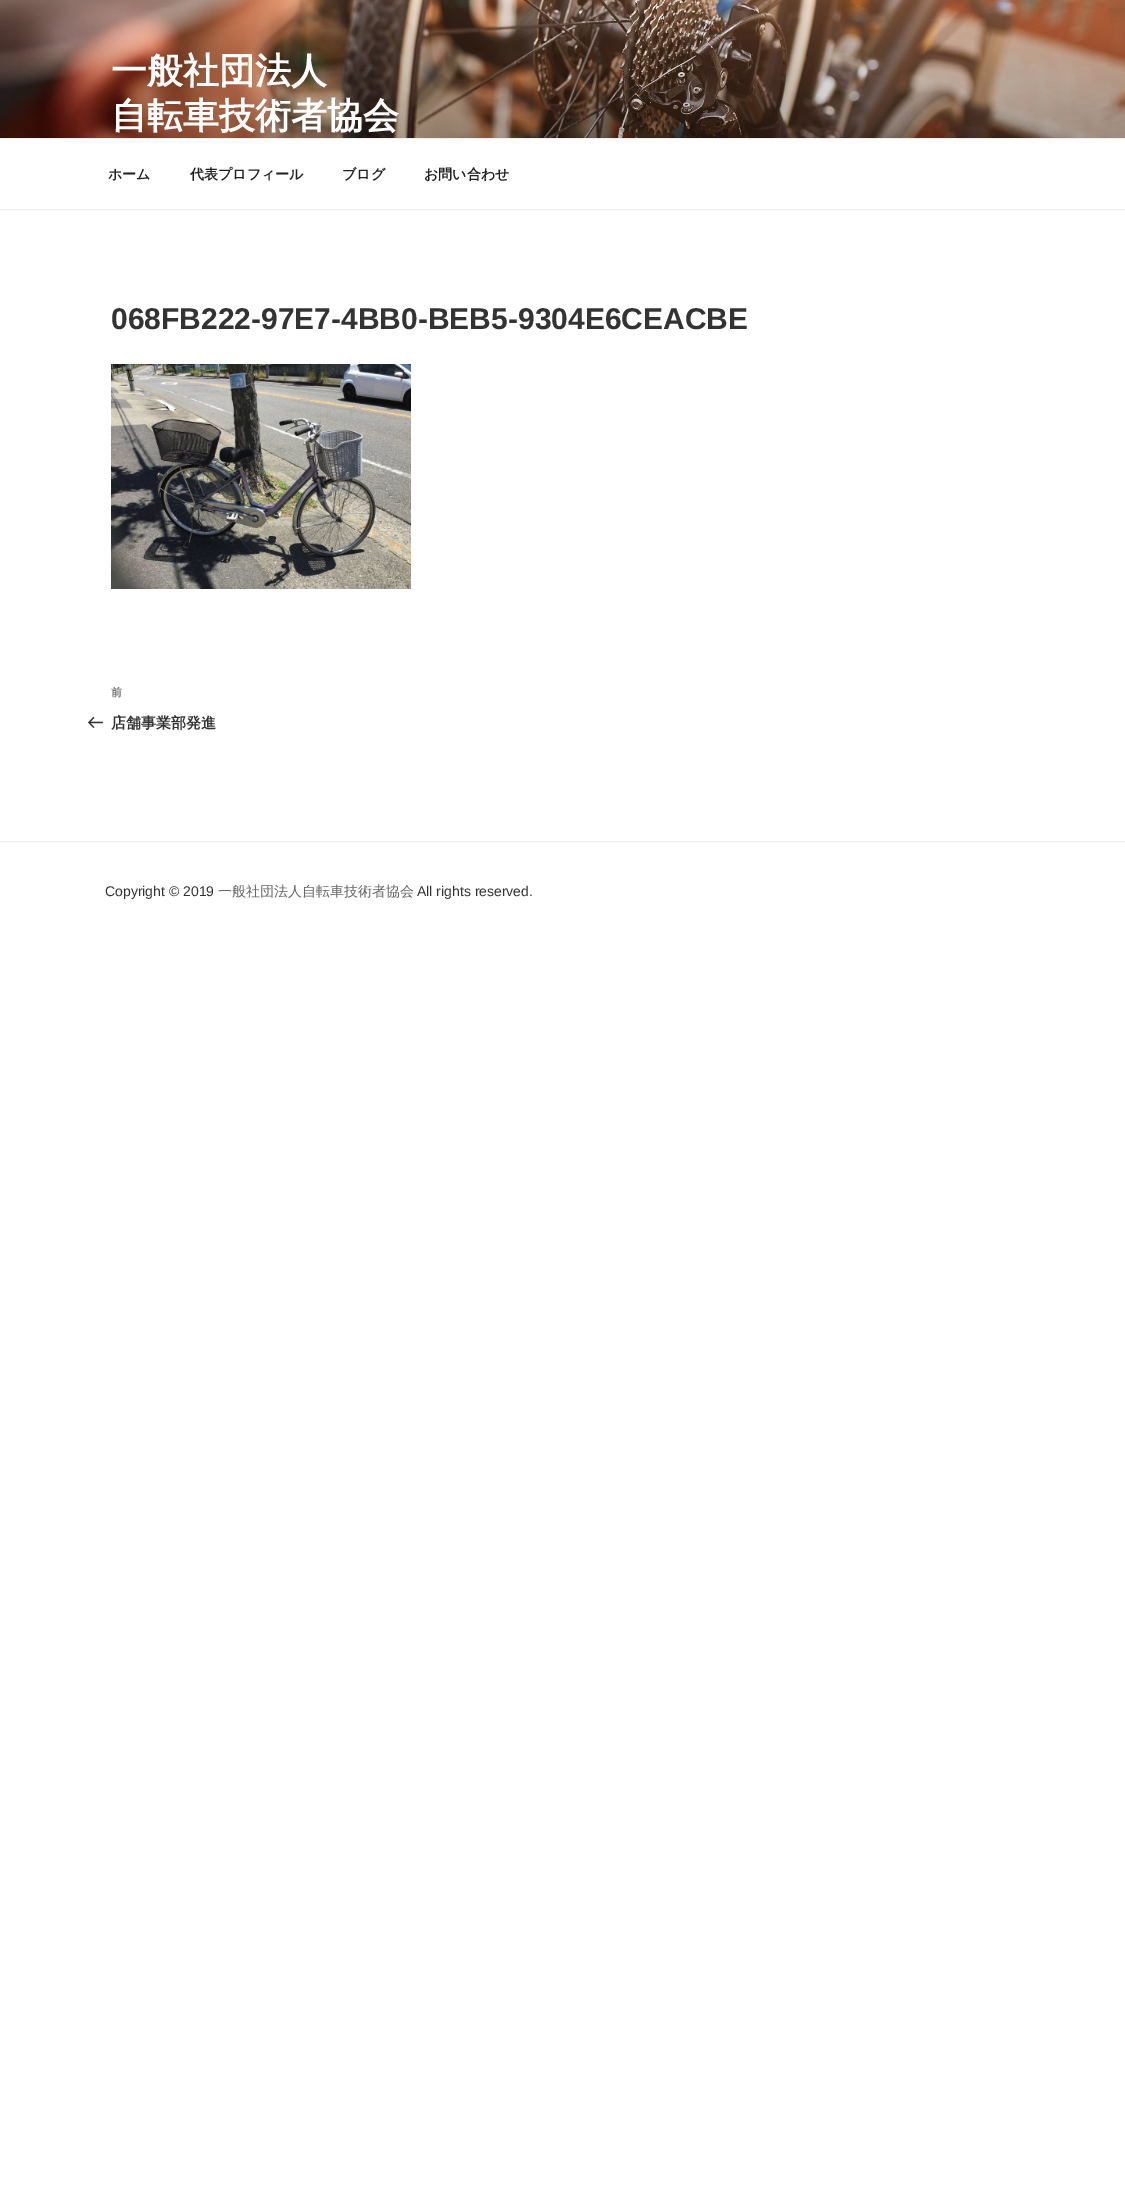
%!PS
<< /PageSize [1125 2189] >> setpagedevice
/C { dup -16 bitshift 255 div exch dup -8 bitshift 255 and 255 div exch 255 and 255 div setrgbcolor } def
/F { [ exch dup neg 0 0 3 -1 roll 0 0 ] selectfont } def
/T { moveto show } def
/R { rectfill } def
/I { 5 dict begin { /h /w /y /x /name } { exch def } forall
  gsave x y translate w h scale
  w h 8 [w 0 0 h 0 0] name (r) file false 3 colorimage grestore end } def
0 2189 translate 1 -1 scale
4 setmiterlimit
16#FFFFFF C
0 0 1125 2189 R
(1.rgb) 0 0 1125 138 I
/WenQuanYiZenHei-Bold 36 F
(一般社団法人) 111 83 T
(自転車技術者協会) 111 128 T
16#EEEEEE C
0 138 1125 1 R
0 209 1125 1 R
/WenQuanYiZenHei-Bold 14 F
16#222222 C
(ホーム) 108 179 T
(代表プロフィール) 190 179 T
(ブログ) 342 179 T
(お問い合わせ) 424 179 T
/LiberationSans-Bold 30 F
16#333333 C
(068FB222-97E7-4BB0-BEB5-9304E6CEACBE) 111 329 T
(2.rgb) 111 364 300 225 I
/WenQuanYiZenHei-Bold 11 F
16#767676 C
(前) 111 696 T
(3.rgb) 88 717 15 11 I
/WenQuanYiZenHei-Bold 15 F
16#333333 C
(店舗事業部発進) 111 728 T
16#EEEEEE C
0 841 1125 1 R
/LiberationSans-Regular 14 F
16#333333 C
(Copyright © 2019) 105 896 T
/WenQuanYiZenHei-Medium 14 F
16#666666 C
(一般社団法人自転車技術者協会) 218 896 T
/LiberationSans-Regular 14 F
16#333333 C
(All rights reserved.) 417 896 T
showpage
